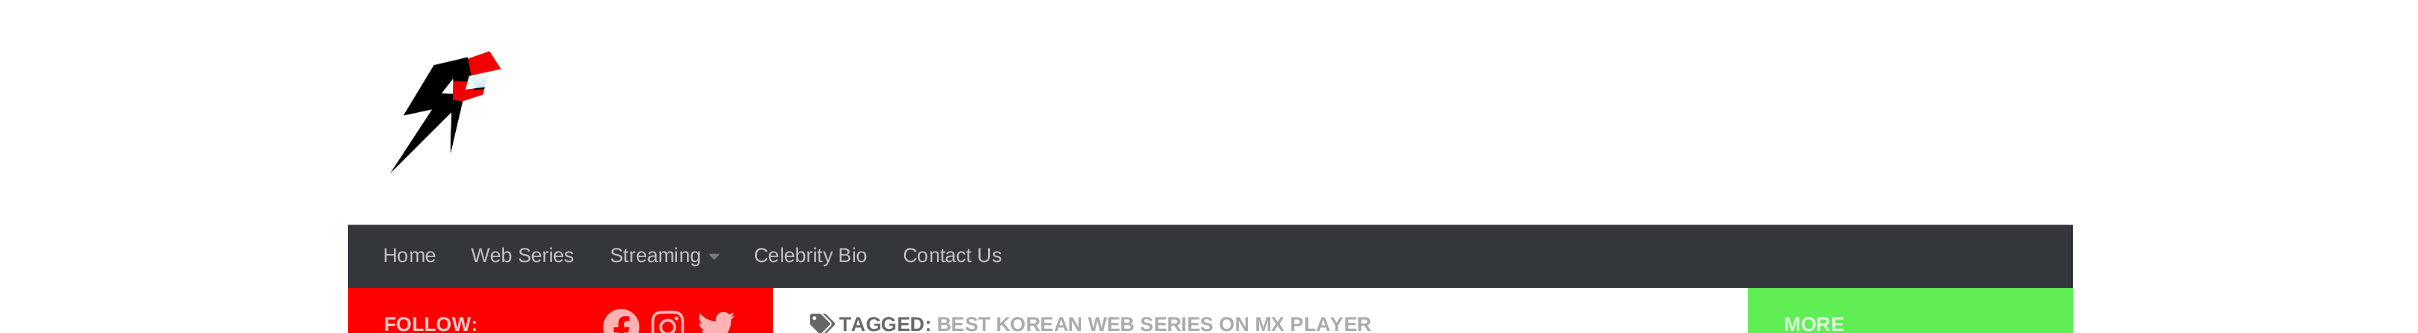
%!PS
<< /PageSize [2418 333] /PageUsesTransparency true >> setpagedevice
/m/moveto load def
/l/rlineto load def
/z/closepath load def
/f/fill load def
/C { dup -16 bitshift 255 div exch dup -8 bitshift 255 and 255 div exch 255 and 255 div setrgbcolor } def
/F { [ exch dup neg 0 0 3 -1 roll 0 0 ] selectfont } def
/T { moveto show } def
/R { rectfill } def
/A { dup .setfillconstantalpha .setstrokeconstantalpha } def
/I { 5 dict begin { /h /w /y /x /name } { exch def } forall
  gsave x y translate w h scale
  w h 8 [w 0 0 h 0 0] name (r) file false 3 colorimage grestore end } def
0 .pushpdf14devicefilter
0 333 translate 1 -1 scale
4 setmiterlimit
16#FFFFFF C
0 0 2418 333 R
(1.rgb) 390 50 112 124 I
16#CCCCCC C
348 224 m 0 1 l 1724 0 l 0 61 l 1 0 l 0 -62 l z f
16#33363B C
349 225 1724 63 R
16#292B2F C
2071 225 1 63 R
348 225 1 63 R
0.05 A
16#FFFFFF C
348 225 1725 1 R
/LiberationSans-Regular 20 F
1 A
16#C2C3C4 C
(Home) 383 262 T
(Web Series) 471 262 T
(Streaming) 610 262 T
(2.rgb) 709 253 11 7 I
(Celebrity Bio) 754 262 T
(Contact Us) 903 262 T
16#FE0000 C
348 288 425 45 R
/LiberationSans-Bold 20 F
16#FFCCCC C
(FOLLOW:) 384 331 T
(3.rgb) 603 309 37 24 I
(4.rgb) 651 310 34 23 I
(5.rgb) 699 312 36 21 I
(6.rgb) 810 313 25 20 I
16#666666 C
(TAGGED:) 839 331 T
16#AAAAAA C
(BEST KOREAN WEB SERIES ON MX PLAYER) 937 331 T
16#5FEF55 C
1748 288 325 45 R
16#DFFCDD C
(MORE) 1784 331 T
.poppdf14devicefilter showpage
